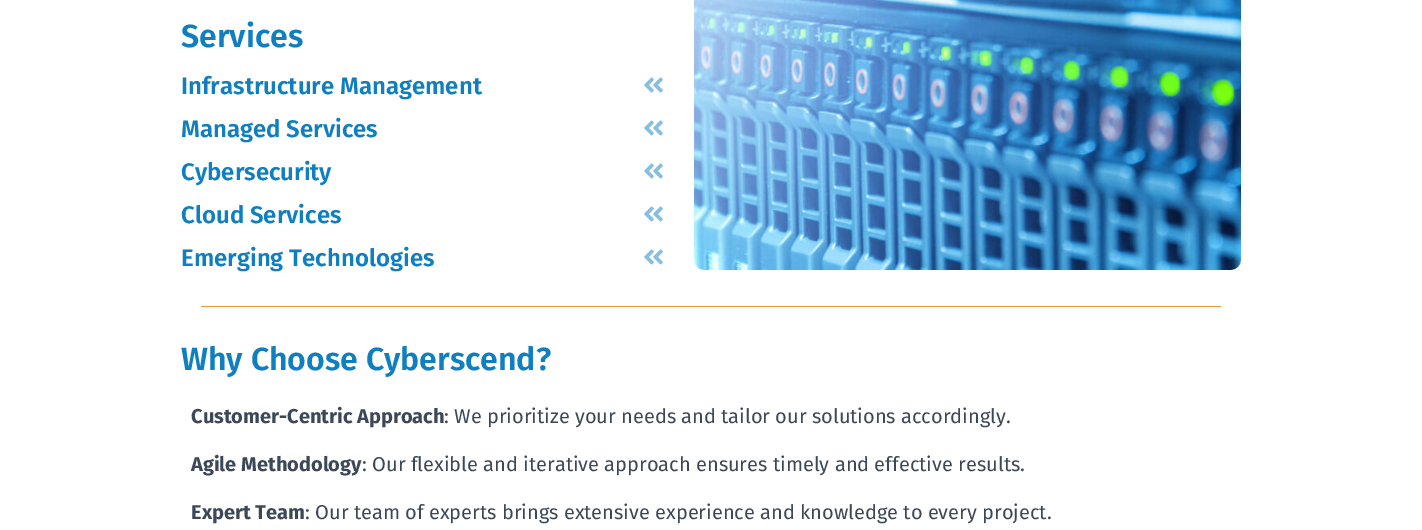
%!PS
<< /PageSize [1422 530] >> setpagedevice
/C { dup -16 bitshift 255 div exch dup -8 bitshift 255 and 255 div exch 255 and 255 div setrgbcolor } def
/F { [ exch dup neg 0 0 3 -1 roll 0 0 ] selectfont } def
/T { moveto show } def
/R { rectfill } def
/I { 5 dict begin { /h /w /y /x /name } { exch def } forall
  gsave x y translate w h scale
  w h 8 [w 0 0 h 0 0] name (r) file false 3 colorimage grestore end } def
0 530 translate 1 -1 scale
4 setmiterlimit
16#FFFFFF C
0 0 1422 530 R
/FiraSans-SemiBold 32 F
16#107FC0 C
(Services) 181 47 T
/FiraSans-SemiBold 24 F
(Infrastructure Management) 181 94 T
(1.rgb) 644 77 19 16 I
(Managed Services) 181 137 T
(1.rgb) 644 120 19 16 I
(Cybersecurity) 181 180 T
(1.rgb) 644 163 19 16 I
(Cloud Services) 181 223 T
(1.rgb) 644 206 19 16 I
(Emerging Technologies) 181 266 T
(1.rgb) 644 249 19 16 I
(2.rgb) 694 0 547 270 I
16#E19E39 C
201 306 1020 1 R
/FiraSans-SemiBold 32 F
16#107FC0 C
(Why Choose Cyberscend?) 181 370 T
/FiraSans-Bold 20 F
16#3C4757 C
(Customer-Centric Approach) 191 423 T
/FiraSans-Regular 20 F
(: We prioritize your needs and tailor our solutions accordingly.) 444 423 T
/FiraSans-Bold 20 F
(Agile Methodology) 191 471 T
/FiraSans-Regular 20 F
(: Our flexible and iterative approach ensures timely and effective results.) 362 471 T
/FiraSans-Bold 20 F
(Expert Team) 191 519 T
/FiraSans-Regular 20 F
(: Our team of experts brings extensive experience and knowledge to every project.) 305 519 T
showpage
